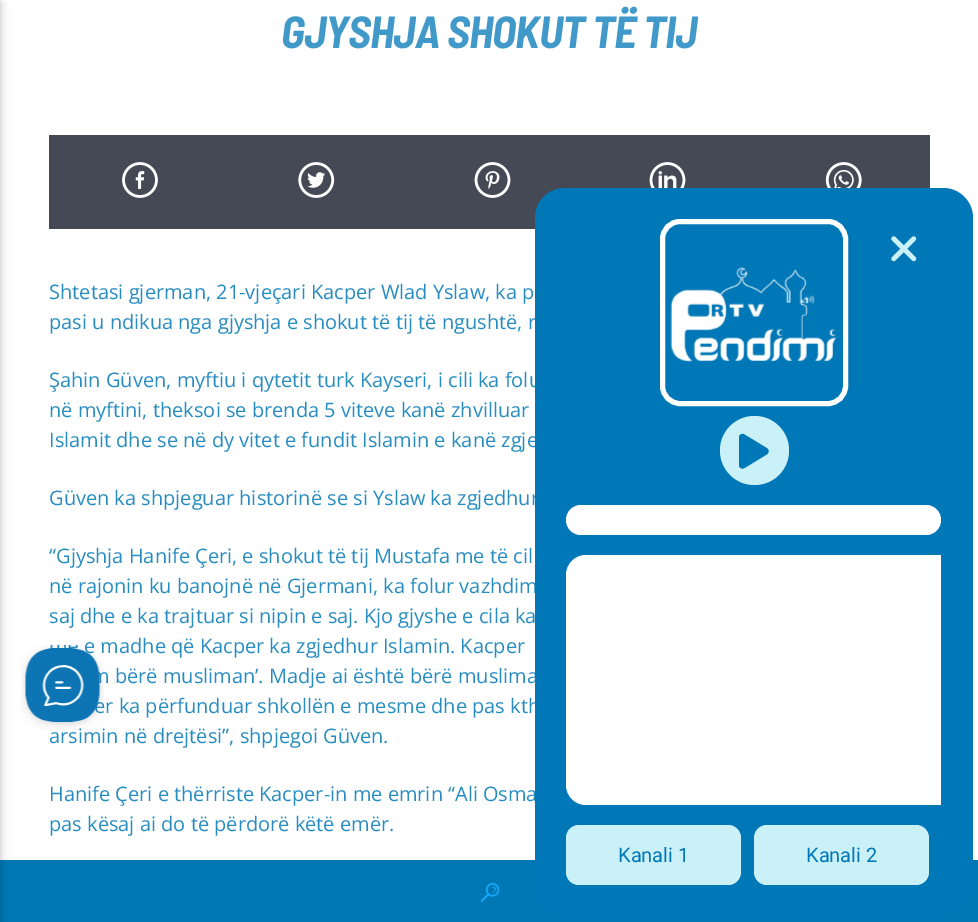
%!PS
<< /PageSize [978 922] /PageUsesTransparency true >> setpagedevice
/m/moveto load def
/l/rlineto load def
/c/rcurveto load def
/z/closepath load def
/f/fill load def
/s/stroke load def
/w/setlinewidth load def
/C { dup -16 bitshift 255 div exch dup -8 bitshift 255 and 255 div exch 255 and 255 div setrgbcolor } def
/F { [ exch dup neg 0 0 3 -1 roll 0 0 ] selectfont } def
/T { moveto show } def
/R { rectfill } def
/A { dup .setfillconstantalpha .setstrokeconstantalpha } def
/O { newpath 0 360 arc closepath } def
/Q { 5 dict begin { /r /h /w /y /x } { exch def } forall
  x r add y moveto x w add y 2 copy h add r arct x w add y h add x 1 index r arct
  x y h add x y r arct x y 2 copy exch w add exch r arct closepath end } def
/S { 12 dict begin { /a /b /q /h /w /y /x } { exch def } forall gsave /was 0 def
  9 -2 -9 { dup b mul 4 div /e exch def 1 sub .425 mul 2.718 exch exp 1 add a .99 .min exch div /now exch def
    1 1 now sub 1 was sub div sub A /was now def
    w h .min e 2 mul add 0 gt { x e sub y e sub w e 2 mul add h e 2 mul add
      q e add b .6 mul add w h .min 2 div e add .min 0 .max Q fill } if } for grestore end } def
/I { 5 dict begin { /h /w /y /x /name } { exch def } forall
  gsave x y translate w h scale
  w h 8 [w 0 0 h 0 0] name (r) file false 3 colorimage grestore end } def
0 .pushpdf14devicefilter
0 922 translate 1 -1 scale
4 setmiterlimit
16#FFFFFF C
0 0 978 922 R
16#0077B5 C
0 860 978 62 R
16#000000 C
-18 3 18 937 0 6 .12 S
-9 3 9 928 0 3 .16 S
/BarlowSemiCondensed-BoldItalic 45 F
16#4099C8 C
281 48 m -.9 0 (GJYSHJA SHOKUT TË TIJ) ashow
16#454955 C
49 135 881 94 R
(1.rgb) 122 162 36 36 I
(2.rgb) 298 162 37 36 I
(3.rgb) 474 162 37 36 I
(4.rgb) 649 162 37 26 I
(5.rgb) 825 162 37 26 I
/OpenSans-Regular 20 F
16#278CC0 C
(Shtetasi gjerman, 21-vjeçari Kacper Wlad Yslaw, ka p) 49 299 T
(pasi u ndikua nga gjyshja e shokut të tij të ngushtë, r) 49 329 T
(Şahin Güven, myftiu i qytetit turk Kayseri, i cili ka folu) 49 387 T
(në myftini, theksoi se brenda 5 viteve kanë zhvilluar) 49 417 T
(Islamit dhe se në dy vitet e fundit Islamin e kanë zgje) 49 447 T
(Güven ka shpjeguar historinë se si Yslaw ka zgjedhur) 49 505 T
(“Gjyshja Hanife Çeri, e shokut të tij Mustafa me të cil) 49 563 T
(në rajonin ku banojnë në Gjermani, ka folur vazhdim) 49 593 T
(saj dhe e ka trajtuar si nipin e saj. Kjo gjyshe e cila ka) 49 623 T
(e madhe që Kacper ka zgjedhur Islamin. Kacper) 84 653 T
(m bërë musliman’. Madje ai është bërë muslima) 91 683 T
(er ka përfunduar shkollën e mesme dhe pas kth) 94 713 T
(arsimin në drejtësi”, shpjegoi Güven.) 49 743 T
(Hanife Çeri e thërriste Kacper-in me emrin “Ali Osma) 49 801 T
(pas kësaj ai do të përdorë këtë emër.) 49 831 T
(6.rgb) 480 883 20 20 I
(7.rgb) 21 645 83 85 I
16#0077B6 C
535 188 438 728 30 Q f
16#FFFFFF C
5 w
662.5 221.5 183 182 17.5 Q s
(8.rgb) 670 267 167 95 I
(9.rgb) 891 236 26 26 I
16#CAF0F8 C
754.5 450.5 34.5 O f
(10.rgb) 739 433 30 36 I
16#FFFFFF C
566 505 375 30 15 Q f
586 555 m 355 0 l 0 250 l -355 0 l -11 0 -20 -9 -20 -20 c 0 -210 l 0 -11 9 -20 20 -20 c z f
16#CAF0F8 C
566 825 175 60 13 Q f
/Roboto-Regular 20 F
16#0077B6 C
(Kanali 1) 618 862 T
16#CAF0F8 C
754 825 175 60 13 Q f
16#0077B6 C
(Kanali 2) 806 862 T
.poppdf14devicefilter showpage
